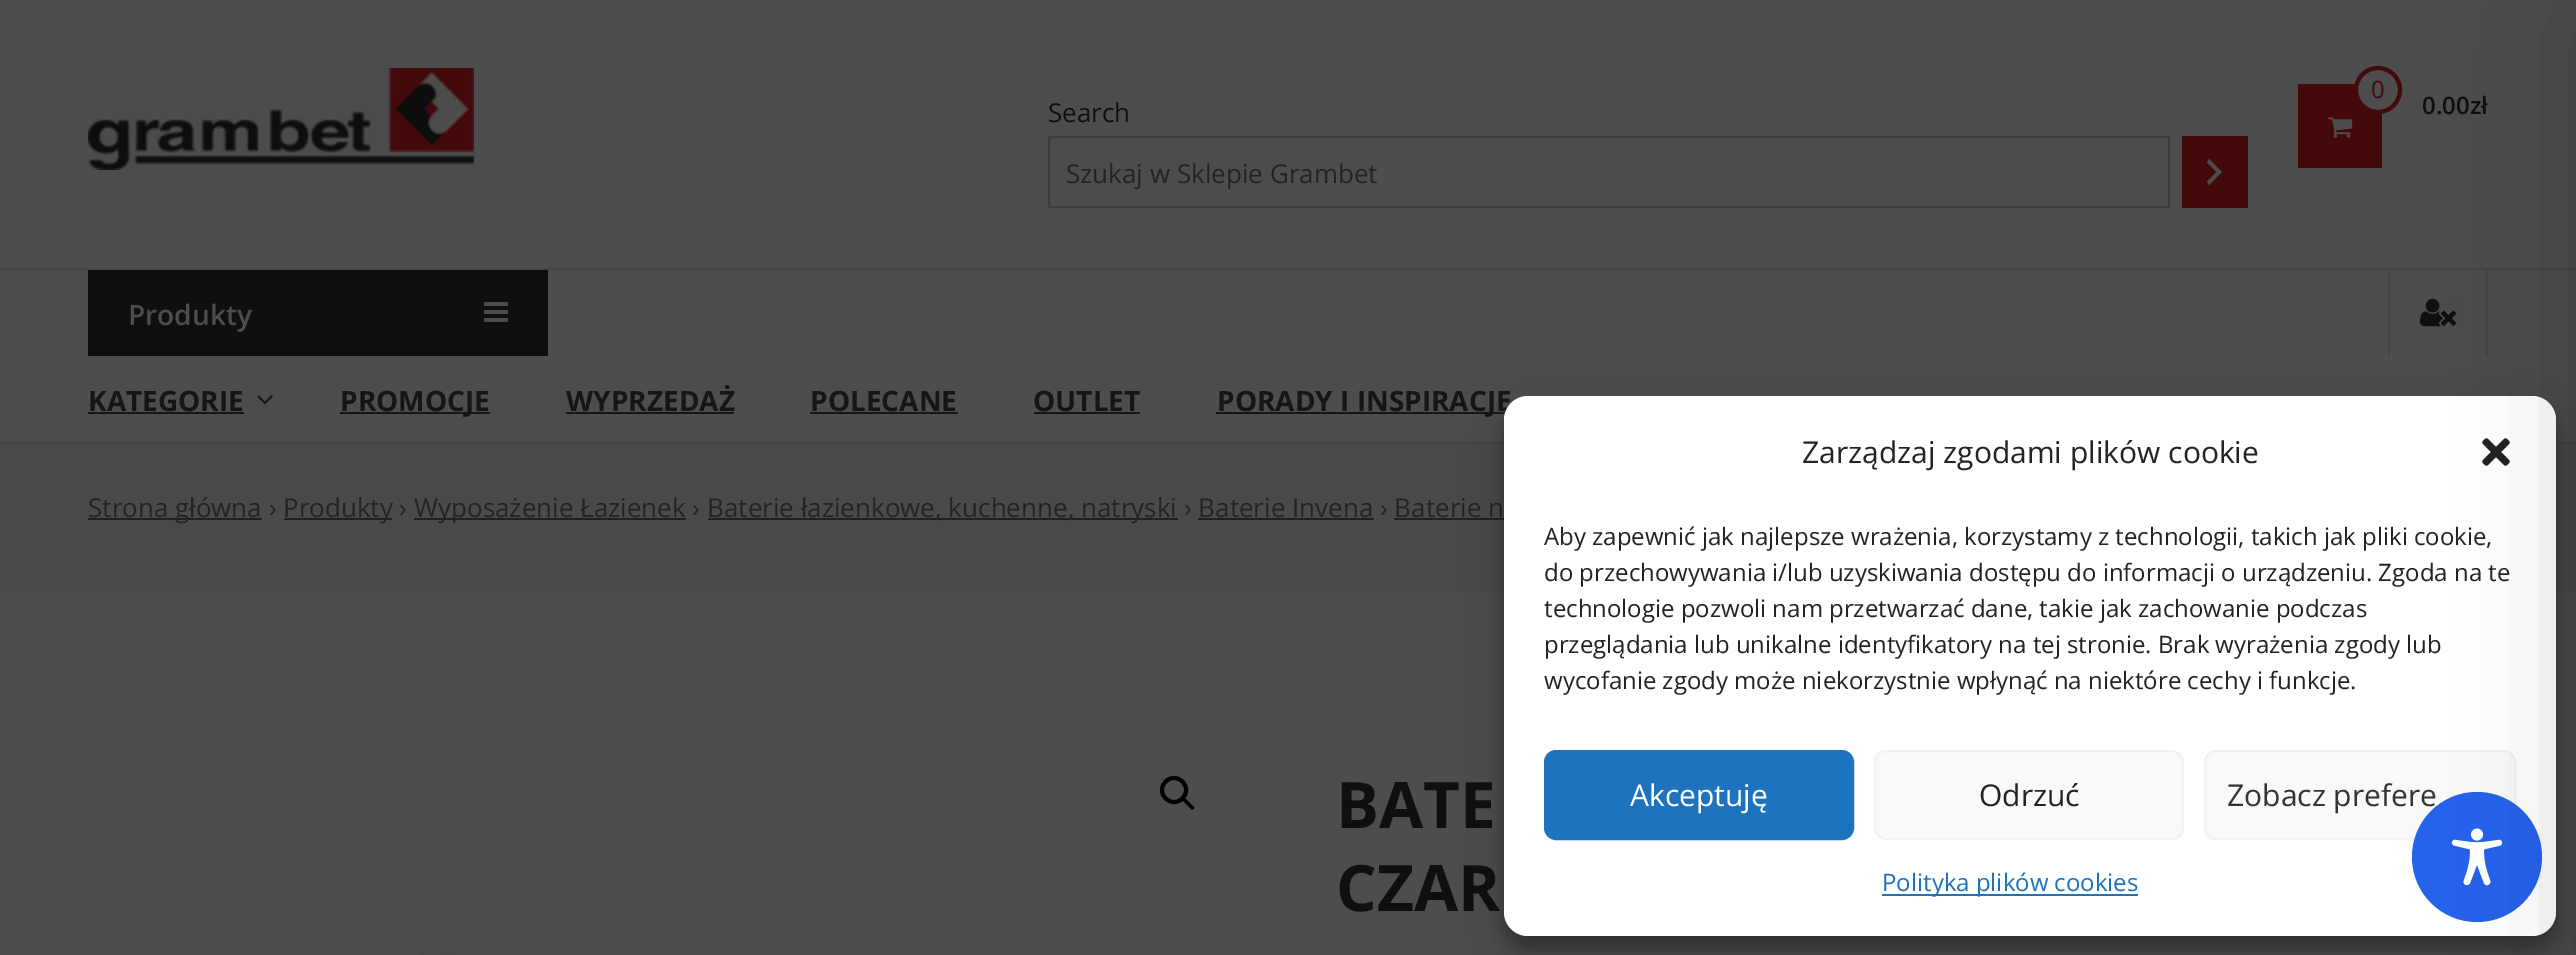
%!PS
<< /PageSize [2576 955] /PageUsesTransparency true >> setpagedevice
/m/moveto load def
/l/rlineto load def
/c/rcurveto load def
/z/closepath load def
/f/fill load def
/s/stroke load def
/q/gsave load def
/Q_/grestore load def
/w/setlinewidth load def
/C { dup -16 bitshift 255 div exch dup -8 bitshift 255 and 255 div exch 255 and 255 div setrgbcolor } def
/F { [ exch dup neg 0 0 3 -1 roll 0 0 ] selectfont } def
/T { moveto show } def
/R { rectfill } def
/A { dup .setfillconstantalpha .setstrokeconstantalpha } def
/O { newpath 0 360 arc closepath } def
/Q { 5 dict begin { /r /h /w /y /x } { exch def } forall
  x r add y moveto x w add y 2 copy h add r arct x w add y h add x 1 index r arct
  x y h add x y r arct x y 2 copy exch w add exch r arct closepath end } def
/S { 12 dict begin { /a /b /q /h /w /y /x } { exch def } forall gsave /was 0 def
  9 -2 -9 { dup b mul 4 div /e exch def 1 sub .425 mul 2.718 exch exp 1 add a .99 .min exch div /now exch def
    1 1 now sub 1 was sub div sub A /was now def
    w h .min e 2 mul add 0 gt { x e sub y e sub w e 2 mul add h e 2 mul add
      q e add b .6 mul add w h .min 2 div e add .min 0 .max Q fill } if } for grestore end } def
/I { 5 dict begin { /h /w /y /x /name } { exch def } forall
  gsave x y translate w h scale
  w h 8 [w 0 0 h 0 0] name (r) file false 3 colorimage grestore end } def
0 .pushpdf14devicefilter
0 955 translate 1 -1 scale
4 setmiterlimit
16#4D4D4D C
0 0 2576 955 R
(1.rgb) 88 68 386 102 I
16#44090B C
2298 84 84 84 R
16#4D4D4D C
2378 90 22 O q f Q_
16#44090B C
4 w
s
/OpenSans-Regular 24 F
(0) 2371 98 T
(2.rgb) 2328 117 25 21 I
/OpenSans-SemiBold 24 F
16#0F0F0F C
(0.00zł) 2422 114 T
/OpenSans-Regular 26 F
(Search) 1048 122 T
16#3D3D3D C
2 w
1049 137 1120 70 rectstroke
16#232323 C
(Szukaj w Sklepie Grambet) 1066 183 T
16#44090B C
2182 136 66 72 R
16#4D4D4D C
2207 181.5 m 9.5 -9.5 l -9.5 -9.5 l 2 -3.5 l 13 13 l -13 13 l z f
16#454545 C
0 268 2576 2 R
0 442 2576 2 R
16#0F0F0F C
88 270 460 86 R
/OpenSans-SemiBold 28 F
16#4D4D4D C
(Produkty) 128 325 T
(3.rgb) 484 302 24 20 I
16#454545 C
2486 270 2 86 R
2388 270 2 86 R
(4.rgb) 2420 298 37 29 I
/OpenSans-Bold 28 F
16#151515 C
(KATEGORIE) 88 411 T
88 412 156 2 R
(5.rgb) 257 395 16 10 I
340 412 150 2 R
(PROMOCJE) 340 411 T
(WYPRZEDAŻ) 566 411 T
566 412 168 2 R
(POLECANE) 810 411 T
810 412 148 2 R
(OUTLET) 1033 411 T
1034 412 106 2 R
1216 412 296 2 R
(PORADY I INSPIRACJE) 1217 411 T
16#4A4A4A C
0 444 2576 148 R
16#212020 C
88 518 174 2 R
/OpenSans-Regular 26 F
16#232323 C
(Strona główna ›) 88 517 T
16#212020 C
284 518 108 2 R
16#232323 C
(Produkty ›) 283 517 T
16#212020 C
414 518 272 2 R
16#232323 C
(Wyposażenie Łazienek ›) 414 517 T
16#212020 C
708 518 470 2 R
16#232323 C
(Baterie łazienkowe, kuchenne, natryski › Baterie Invena › Baterie n) 707 517 T
16#212020 C
1198 518 176 2 R
1394 518 110 2 R
16#000000 C
4 w
1174 790 12 O s
1182.5 798 m .5 -1 2 -1 2.5 0 c 8.5 8.5 l 1 .5 1 2 0 2.5 c -.5 1 -2 1 -2.5 0 c -8.5 -8.5 l -1 -.5 -1 -2 0 -2.5 c z f
(6.rgb) 420 953 34 2 I
/OpenSans-Bold 64 F
16#0F0F0F C
(BATE) 1336 828 T
(CZAR) 1336 911 T
16#000000 C
1504 408 1052 540 24 6 .23 S
1504 416 1052 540 24 20 .19 S
16#FFFFFF C
1504 396 1052 540 24 Q f
(7.rgb) 2482 438 28 28 I
16#F9F9F9 C
2205 751 310 88 11 Q q f Q_
16#F2F2F2 C
2 w
s
/OpenSans-Regular 30 F
16#333333 C
(Zobacz prefere) 2227 806 T
16#2563EB C
2477 857 65 O f
(8.rgb) 2451 828 52 58 I
16#000000 C
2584 20 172 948 0 60 .2 S
16#232323 C
(Zarządzaj zgodami plików cookie) 1802 463 T
/OpenSans-Regular 24 F
(Aby zapewnić jak najlepsze wrażenia, korzystamy z technologii, takich jak pliki cookie,) 1544 545 T
(do przechowywania i/lub uzyskiwania dostępu do informacji o urządzeniu. Zgoda na te) 1544 581 T
(technologie pozwoli nam przetwarzać dane, takie jak zachowanie podczas) 1544 617 T
(przeglądania lub unikalne identyfikatory na tej stronie. Brak wyrażenia zgody lub) 1544 653 T
(wycofanie zgody może niekorzystnie wpłynąć na niektóre cechy i funkcje.) 1544 689 T
16#1E73BE C
1545 751 308 88 11 Q q f Q_
s
/OpenSans-Regular 30 F
16#FFFFFF C
(Akceptuję) 1630 806 T
16#F9F9F9 C
1875 751 308 88 11 Q q f Q_
16#F2F2F2 C
s
16#232323 C
(Odrzuć) 1979 806 T
16#1E73BE C
1882 894 256 2 R
/OpenSans-Regular 24 F
(Polityka plików cookies) 1882 891 T
.poppdf14devicefilter showpage
